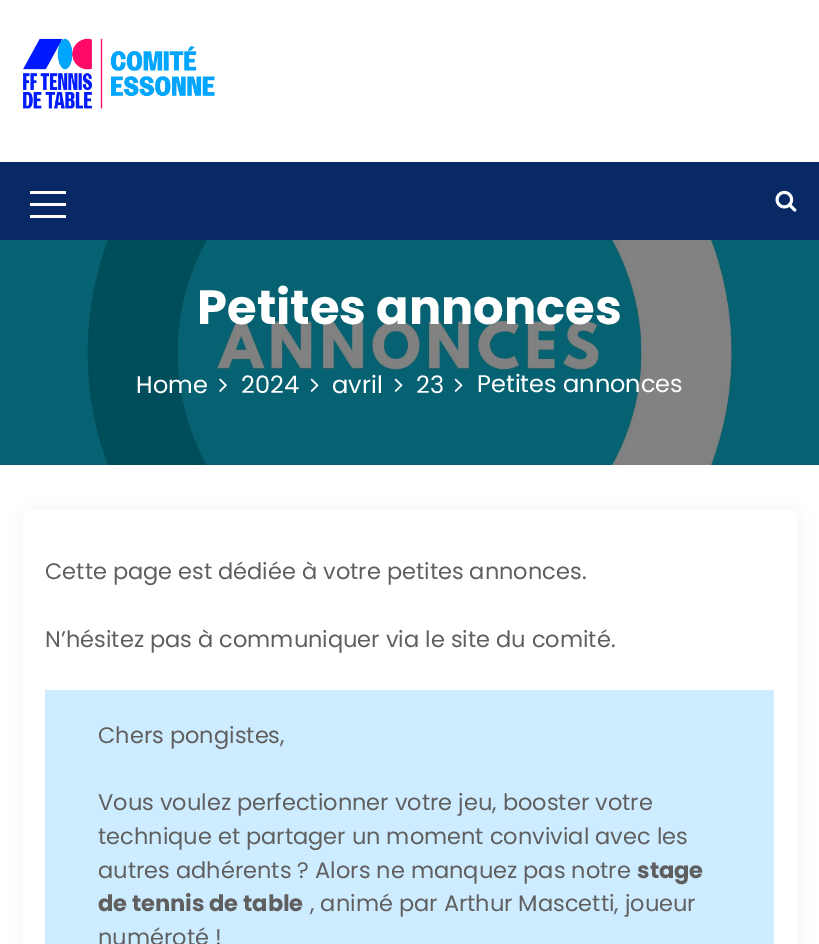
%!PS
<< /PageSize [819 944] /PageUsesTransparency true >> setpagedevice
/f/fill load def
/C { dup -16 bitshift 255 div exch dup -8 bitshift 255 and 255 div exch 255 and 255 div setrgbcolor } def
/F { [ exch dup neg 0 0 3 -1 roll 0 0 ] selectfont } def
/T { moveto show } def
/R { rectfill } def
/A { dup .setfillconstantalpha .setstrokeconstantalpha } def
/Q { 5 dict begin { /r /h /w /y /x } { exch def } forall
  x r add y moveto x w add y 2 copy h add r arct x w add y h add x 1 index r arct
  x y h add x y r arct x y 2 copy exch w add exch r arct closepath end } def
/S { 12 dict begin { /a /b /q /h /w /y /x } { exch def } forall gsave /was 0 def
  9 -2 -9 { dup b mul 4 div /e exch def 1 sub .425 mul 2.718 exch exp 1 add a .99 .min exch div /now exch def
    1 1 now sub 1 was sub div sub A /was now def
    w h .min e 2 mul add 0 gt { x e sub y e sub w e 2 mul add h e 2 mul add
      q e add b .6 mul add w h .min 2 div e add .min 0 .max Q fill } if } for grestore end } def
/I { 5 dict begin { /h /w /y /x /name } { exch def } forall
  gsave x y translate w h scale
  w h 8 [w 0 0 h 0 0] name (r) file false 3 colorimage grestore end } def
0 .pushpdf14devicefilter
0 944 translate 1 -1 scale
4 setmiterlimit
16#FFFFFF C
0 0 819 944 R
(1.rgb) 23 38 192 71 I
16#082964 C
0 162 819 78 R
16#FFFFFF C
30 191 36 3 R
30 203 36 3 R
30 215 36 3 R
(2.rgb) 775 190 22 22 I
(3.rgb) 0 240 819 225 I
/Poppins-Bold 48 F
(Petites annonces) 197 324 T
/Poppins-Regular 24 F
(Home) 136 393 T
(4.rgb) 219 378 8 14 I
(2024) 241 393 T
(5.rgb) 310 378 9 14 I
(avril) 332 393 T
(5.rgb) 394 378 9 14 I
(23) 416 393 T
(5.rgb) 454 378 9 14 I
(Petites annonces) 477 392 T
16#F2F2F2 C
24 512 774 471 9 10 1 S
16#FFFFFF C
23 510 774 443 9 Q f
/Poppins-Regular 22.5 F
16#5F5F5F C
(Cette page est dédiée à votre petites annonces.) 45 579 T
(N’hésitez pas à communiquer via le site du comité.) 45 647 T
16#CEECFF C
45 690 729 254 R
16#5F5F5F C
(Chers pongistes,) 98 743 T
(Vous voulez perfectionner votre jeu, booster votre) 98 810 T
(technique et partager un moment convivial avec les) 98 844 T
(autres adhérents ? Alors ne manquez pas notre) 98 878 T
/Poppins-Bold 22.5 F
(stage) 637 878 T
(de tennis de table) 98 911 T
/Poppins-Regular 22.5 F
(, animé par Arthur Mascetti, joueur) 310 911 T
(numéroté !) 98 945 T
.poppdf14devicefilter showpage
